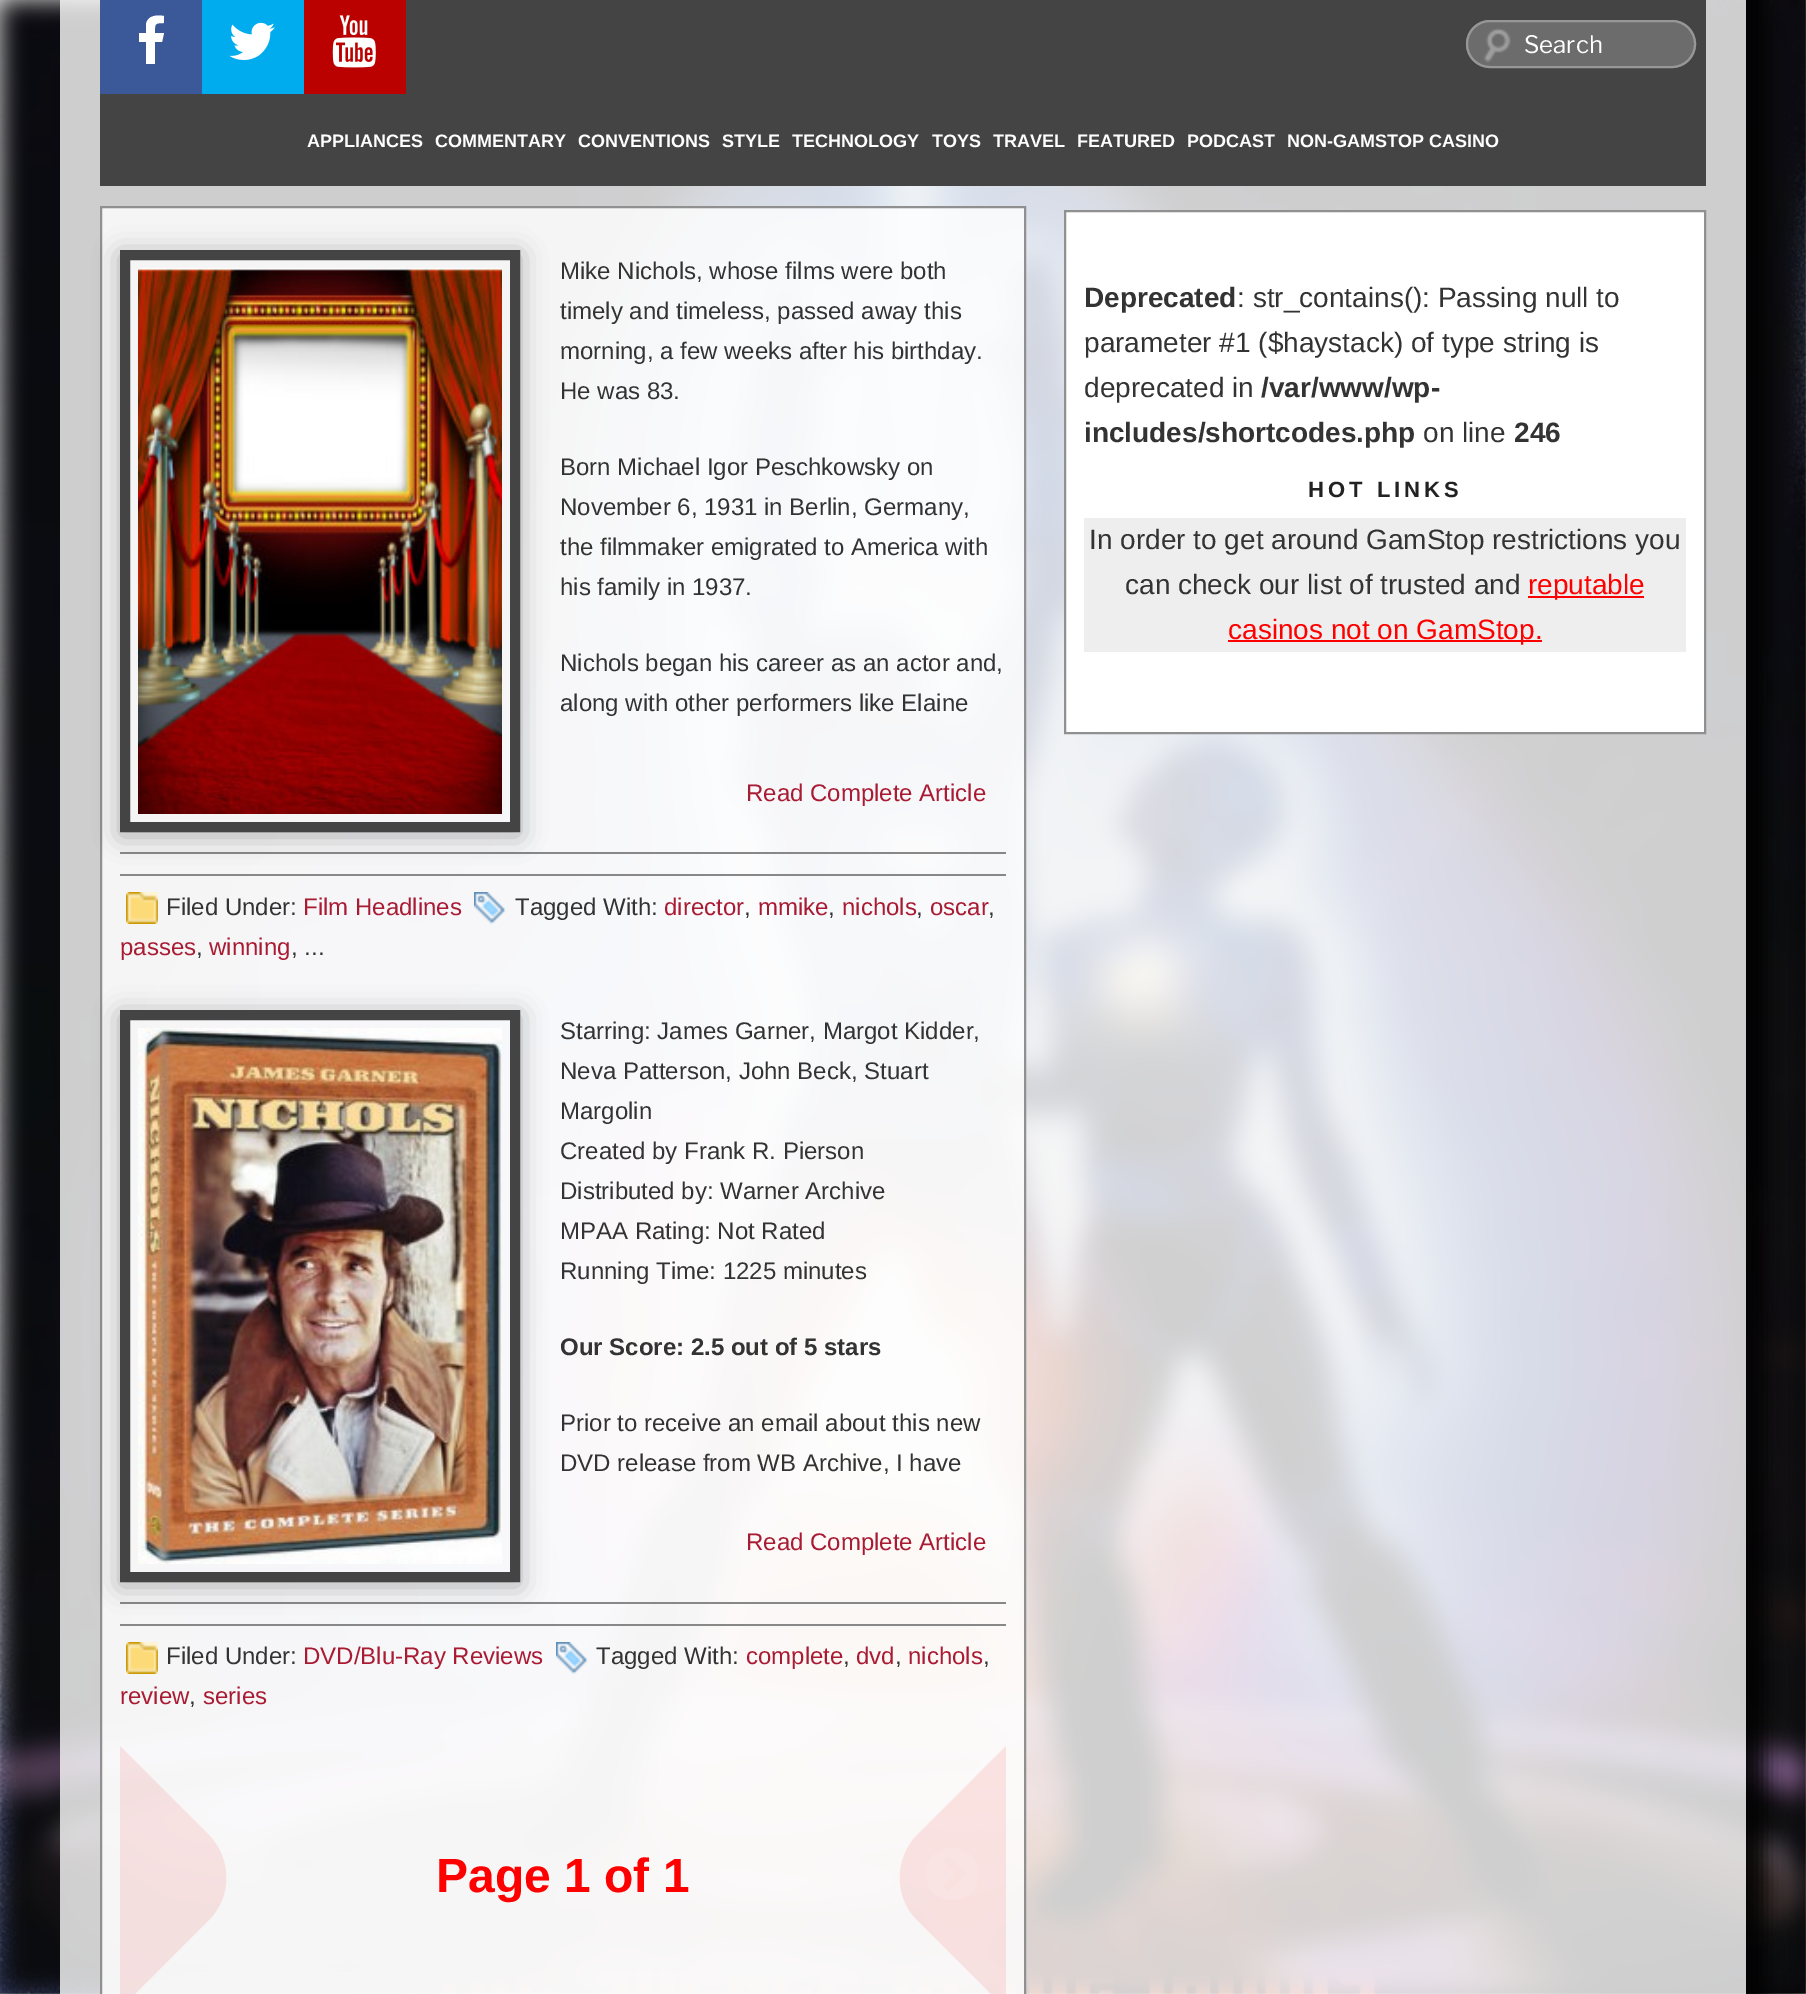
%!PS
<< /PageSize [1806 1994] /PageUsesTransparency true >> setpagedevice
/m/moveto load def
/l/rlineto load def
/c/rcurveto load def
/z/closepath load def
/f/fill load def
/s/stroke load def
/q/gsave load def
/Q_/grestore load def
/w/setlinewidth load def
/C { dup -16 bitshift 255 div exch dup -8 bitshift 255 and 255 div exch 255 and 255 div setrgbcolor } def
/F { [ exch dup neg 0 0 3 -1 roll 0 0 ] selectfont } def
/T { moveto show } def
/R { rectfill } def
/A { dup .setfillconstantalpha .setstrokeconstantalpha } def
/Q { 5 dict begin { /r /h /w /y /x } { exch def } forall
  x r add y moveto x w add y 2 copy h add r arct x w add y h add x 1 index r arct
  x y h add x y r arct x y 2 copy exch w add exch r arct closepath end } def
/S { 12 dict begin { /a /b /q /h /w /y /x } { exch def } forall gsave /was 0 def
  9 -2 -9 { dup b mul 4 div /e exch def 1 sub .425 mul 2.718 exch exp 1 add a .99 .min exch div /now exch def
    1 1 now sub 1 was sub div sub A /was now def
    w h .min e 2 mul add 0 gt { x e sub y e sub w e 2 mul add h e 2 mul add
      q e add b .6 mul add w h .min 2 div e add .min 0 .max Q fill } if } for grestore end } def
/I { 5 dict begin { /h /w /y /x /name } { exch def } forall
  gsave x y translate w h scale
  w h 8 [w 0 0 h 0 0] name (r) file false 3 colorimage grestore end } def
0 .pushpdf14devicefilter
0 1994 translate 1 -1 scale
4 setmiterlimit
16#FFFFFF C
0 0 1806 1994 R
(1.rgb) 0 0 1806 1994 I
(2.rgb) 0 0 1806 1994 I
q
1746 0 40 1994 rectclip
16#000000 C
80 -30 1686 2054 0 10 .88 S
Q_
16#444444 C
100 0 1606 186 R
16#3B5998 C
100 0 102 94 R
16#FFFFFF C
139 42 m 0 -9 l 7 0 l 0 -9 l 2 -9 11 -9 18 -8 c 0 7 l -10 0 -9 1 -9 10 c 9 0 l -2 9 l -7 0 l 0 22 l -9 0 l 0 -22 l z f
16#00ACED C
202 0 102 94 R
(3.rgb) 229 22 46 38 I
16#BB0000 C
304 0 102 94 R
(4.rgb) 332 15 44 53 I
16#6C6C6C C
1466 20 230 48 24 Q f
(5.rgb) 1483 28 28 35 I
16#979797 C
2 w
1467 21 228 46 23 Q s
/LibreFranklin-Regular 24 F
16#FFFFFF C
(Search) 1524 53 T
/LiberationSans-Bold 18 F
(APPLIANCES) 307 147 T
(COMMENTARY) 435 147 T
(CONVENTIONS) 578 147 T
(STYLE) 722 147 T
(TECHNOLOGY) 792 147 T
(TOYS) 932 147 T
(TRAVEL) 993 147 T
(FEATURED) 1077 147 T
(PODCAST) 1187 147 T
(NON-GAMSTOP CASINO) 1287 147 T
0.8 A
101 207 m 924 0 l 0 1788 l -924 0 l z f
1 A
16#909090 C
101 207 m 924 0 l 0 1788 l -924 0 l z s
16#888888 C
120 852 886 2 R
120 874 886 2 R
q
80 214 m 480 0 l 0 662 l -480 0 l z 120 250 m 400 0 l 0 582 l -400 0 l z eoclip newpath
16#000000 C
120 254 400 582 0 13 .3 S
Q_
16#444444 C
10 w
125 255 390 572 rectstroke
(6.rgb) 138 268 364 546 I
/LiberationSans-Regular 24 F
16#333333 C
(Mike Nichols, whose films were both) 560 279 T
(timely and timeless, passed away this) 560 319 T
(morning, a few weeks after his birthday.) 560 359 T
(He was 83.) 560 399 T
(Born Michael Igor Peschkowsky on) 560 475 T
(November 6, 1931 in Berlin, Germany,) 560 515 T
(the filmmaker emigrated to America with) 560 555 T
(his family in 1937.) 560 595 T
(Nichols began his career as an actor and,) 560 671 T
(along with other performers like Elaine) 560 711 T
16#A91B33 C
(Read Complete Article) 746 801 T
(7.rgb) 126 892 32 32 I
16#333333 C
(Filed Under:) 166 915 T
16#A91B33 C
(Film Headlines) 303 915 T
(8.rgb) 474 892 32 32 I
16#333333 C
(Tagged With:) 515 915 T
16#A91B33 C
(director) 664 915 T
16#333333 C
(,) 744 915 T
16#A91B33 C
(mmike) 758 915 T
16#333333 C
(,) 828 915 T
16#A91B33 C
(nichols) 842 915 T
16#333333 C
(,) 916 915 T
16#A91B33 C
(oscar) 930 915 T
16#333333 C
(,) 988 915 T
16#A91B33 C
(passes) 120 955 T
16#333333 C
(,) 196 955 T
16#A91B33 C
(winning) 209 955 T
16#333333 C
(, ...) 291 955 T
16#888888 C
120 1602 886 2 R
120 1624 886 2 R
q
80 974 m 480 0 l 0 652 l -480 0 l z 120 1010 m 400 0 l 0 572 l -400 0 l z eoclip newpath
16#000000 C
120 1014 400 572 0 13 .3 S
Q_
16#444444 C
125 1015 390 562 rectstroke
(9.rgb) 138 1028 364 536 I
16#333333 C
(Starring: James Garner, Margot Kidder,) 560 1039 T
(Neva Patterson, John Beck, Stuart) 560 1079 T
(Margolin) 560 1119 T
(Created by Frank R. Pierson) 560 1159 T
(Distributed by: Warner Archive) 560 1199 T
(MPAA Rating: Not Rated) 560 1239 T
(Running Time: 1225 minutes) 560 1279 T
/LiberationSans-Bold 24 F
(Our Score: 2.5 out of 5 stars) 560 1355 T
/LiberationSans-Regular 24 F
(Prior to receive an email about this new) 560 1431 T
(DVD release from WB Archive, I have) 560 1471 T
16#A91B33 C
(Read Complete Article) 746 1550 T
(7.rgb) 126 1642 32 32 I
16#333333 C
(Filed Under:) 166 1664 T
16#A91B33 C
(DVD/Blu-Ray Reviews) 303 1664 T
(10.rgb) 556 1642 32 32 I
16#333333 C
(Tagged With:) 596 1664 T
16#A91B33 C
(complete) 746 1664 T
16#333333 C
(,) 843 1664 T
16#A91B33 C
(dvd) 856 1664 T
16#333333 C
(,) 895 1664 T
16#A91B33 C
(nichols) 908 1664 T
16#333333 C
(,) 983 1664 T
16#A91B33 C
(review) 120 1704 T
16#333333 C
(,) 189 1704 T
16#A91B33 C
(series) 203 1704 T
q
120 1738 110 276 rectclip
0.1 A
16#E71312 C
110 1736 m 99 99 l 23 24 23 62 0 85 c -99 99 l -99 -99 l -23 -23 -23 -61 0 -85 c z f
Q_
/LiberationSans-Bold 48 F
16#FF0000 C
(Page 1 of 1) 436 1892 T
q
896 1738 110 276 rectclip
0.1 A
16#E71312 C
1016 1736 m 99 99 l 23 24 23 62 0 85 c -99 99 l -99 -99 l -23 -23 -23 -61 0 -85 c z f
Q_
16#FAE4E3 C
950 1891 m -2 2 -4 -1 -5 -3 c -3 -3 -1 -4 2 -7 c 7 -7 l -8 -9 l -4 -3 -3 -3 0 -7 c 4 -4 6 1 9 4 c 8 8 l 4 4 4 4 0 8 c z 978 1874 m 0 -34 -52 -34 -52 0 c 0 34 52 34 52 0 c z f
16#FFFFFF C
1065 211 m 640 0 l 0 522 l -640 0 l z q f Q_
16#909090 C
2 w
s
/LiberationSans-Bold 28 F
16#333333 C
(Deprecated) 1084 307 T
/LiberationSans-Regular 28 F
(: str_contains\(\): Passing null to) 1237 307 T
(parameter #1 \($haystack\) of type string is) 1084 352 T
(deprecated in) 1084 397 T
/LiberationSans-Bold 28 F
(/var/www/wp-) 1261 397 T
(includes/shortcodes.php) 1084 442 T
/LiberationSans-Regular 28 F
(on line) 1423 442 T
/LiberationSans-Bold 28 F
(246) 1514 442 T
/LiberationSans-Bold 22 F
16#222222 C
1308 497 m 4 0 (HOT LINKS) ashow
16#EEEEEE C
1084 518 602 134 R
/LiberationSans-Regular 28 F
16#333333 C
(In order to get around GamStop restrictions you) 1089 549 T
(can check our list of trusted and) 1125 594 T
16#FF0000 C
1528 596 116 2 R
(reputable) 1528 594 T
1228 640 314 2 R
(casinos not on GamStop.) 1228 639 T
.poppdf14devicefilter showpage
